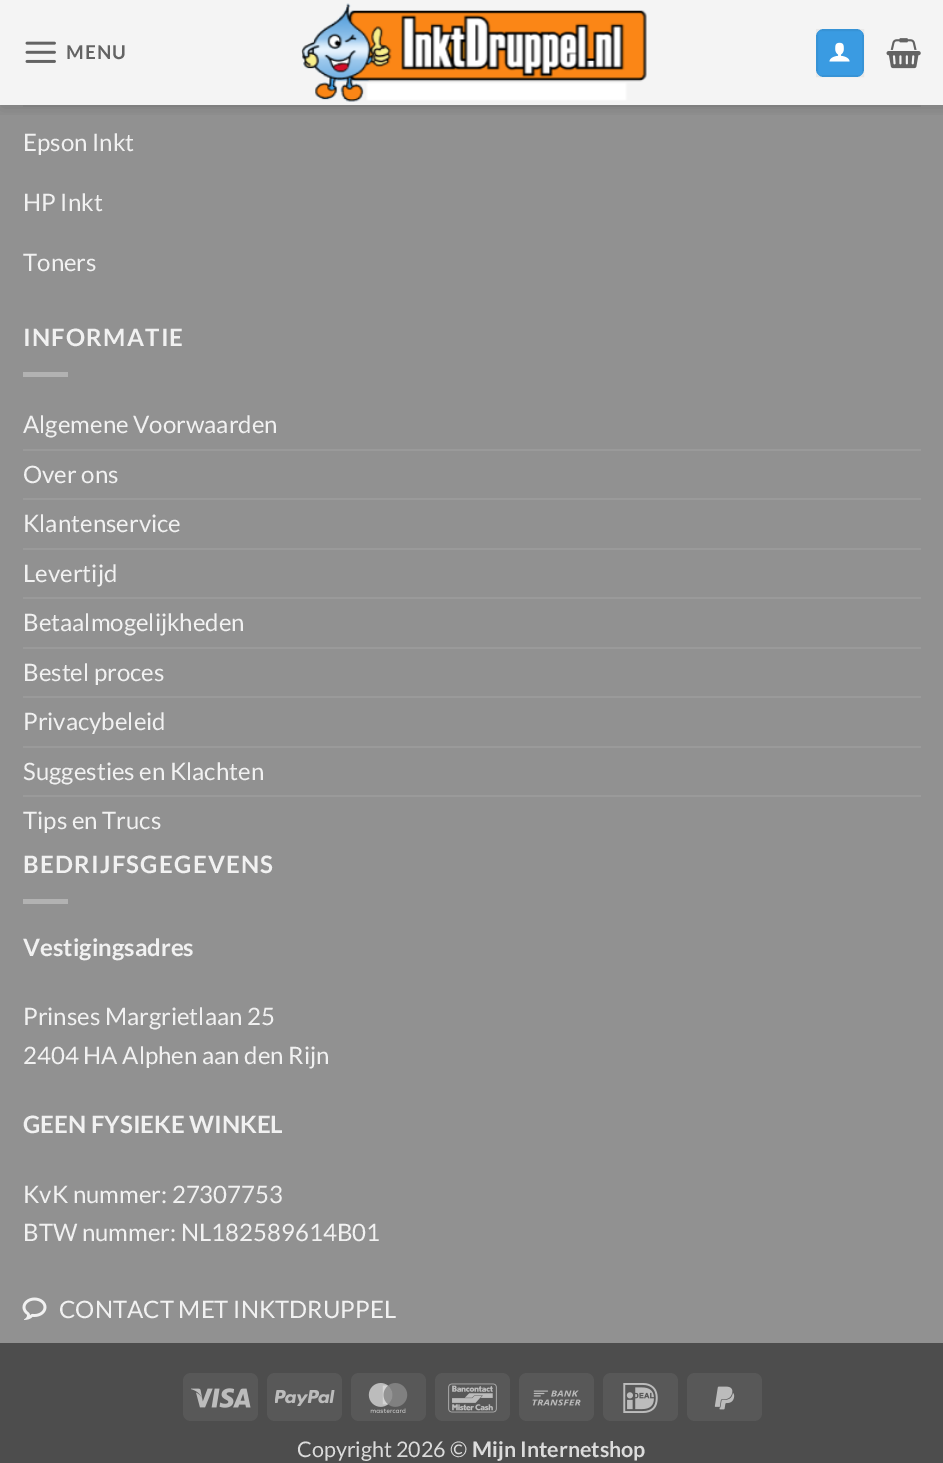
%!PS
<< /PageSize [943 1463] /PageUsesTransparency true >> setpagedevice
/m/moveto load def
/f/fill load def
/q/gsave load def
/Q_/grestore load def
/w/setlinewidth load def
/C { dup -16 bitshift 255 div exch dup -8 bitshift 255 and 255 div exch 255 and 255 div setrgbcolor } def
/F { [ exch dup neg 0 0 3 -1 roll 0 0 ] selectfont } def
/T { moveto show } def
/R { rectfill } def
/A { dup .setfillconstantalpha .setstrokeconstantalpha } def
/Q { 5 dict begin { /r /h /w /y /x } { exch def } forall
  x r add y moveto x w add y 2 copy h add r arct x w add y h add x 1 index r arct
  x y h add x y r arct x y 2 copy exch w add exch r arct closepath end } def
/S { 12 dict begin { /a /b /q /h /w /y /x } { exch def } forall gsave /was 0 def
  9 -2 -9 { dup b mul 4 div /e exch def 1 sub .425 mul 2.718 exch exp 1 add a .99 .min exch div /now exch def
    1 1 now sub 1 was sub div sub A /was now def
    w h .min e 2 mul add 0 gt { x e sub y e sub w e 2 mul add h e 2 mul add
      q e add b .6 mul add w h .min 2 div e add .min 0 .max Q fill } if } for grestore end } def
/I { 5 dict begin { /h /w /y /x /name } { exch def } forall
  gsave x y translate w h scale
  w h 8 [w 0 0 h 0 0] name (r) file false 3 colorimage grestore end } def
0 .pushpdf14devicefilter
0 1463 translate 1 -1 scale
4 setmiterlimit
16#919191 C
0 0 943 1463 R
16#F4F4F4 C
0 0 943 105 R
q
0 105 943 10 rectclip
16#000000 C
2 2 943 105 0 7.5 .15 S
Q_
(1.rgb) 25 41 31 22 I
/Lato-Bold 19 F
16#646464 C
66 59 m 1 0 (MENU) ashow
(2.rgb) 301 3 346 99 I
16#3A9BE2 C
816 29 48 48 8 Q f
0.05 A
16#000000 C
2 w
817 30 46 46 rectstroke
1 A
(3.rgb) 829 42 21 20 I
(4.rgb) 886 38 35 31 I
16#7F7F7F C
23 105 898 2 R
/Lato-Regular 24 F
16#F1F1F1 C
(Epson Inkt) 23 151 T
(HP Inkt) 23 211 T
(Toners) 23 271 T
/Lato-Bold 24 F
23 346 m 1.25 0 (INFORMATIE) ashow
16#B2B2B2 C
23 372 45 5 R
/Lato-Regular 24 F
16#F1F1F1 C
(Algemene Voorwaarden) 23 433 T
16#9A9A9A C
23 449 898 2 R
16#F1F1F1 C
(Over ons) 23 483 T
16#9A9A9A C
23 498 898 2 R
16#F1F1F1 C
(Klantenservice) 23 532 T
16#9A9A9A C
23 548 898 2 R
16#F1F1F1 C
(Levertijd) 23 582 T
16#9A9A9A C
23 597 898 2 R
16#F1F1F1 C
(Betaalmogelijkheden) 23 631 T
16#9A9A9A C
23 647 898 2 R
16#F1F1F1 C
(Bestel proces) 23 681 T
16#9A9A9A C
23 696 898 2 R
16#F1F1F1 C
(Privacybeleid) 23 730 T
16#9A9A9A C
23 746 898 2 R
16#F1F1F1 C
(Suggesties en Klachten) 23 780 T
16#9A9A9A C
23 795 898 2 R
16#F1F1F1 C
(Tips en Trucs) 23 829 T
/Lato-Bold 24 F
23 873 m 1.25 0 (BEDRIJFSGEGEVENS) ashow
16#B2B2B2 C
23 899 45 5 R
16#F1F1F1 C
(Vestigingsadres) 23 956 T
/Lato-Regular 24 F
(Prinses Margrietlaan 25) 23 1025 T
(2404 HA Alphen aan den Rijn) 23 1064 T
/Lato-Bold 24 F
(GEEN FYSIEKE WINKEL) 23 1133 T
/Lato-Regular 24 F
(KvK nummer: 27307753) 23 1203 T
(BTW nummer: NL182589614B01) 23 1241 T
(5.rgb) 22 1297 25 23 I
(CONTACT MET INKTDRUPPEL) 59 1318 T
16#4D4D4D C
0 1343 943 120 R
16#585858 C
183 1373 75 48 8 Q f
(6.rgb) 191 1388 60 20 I
267 1373 75 48 8 Q f
(7.rgb) 275 1390 60 16 I
351 1373 75 48 8 Q f
(8.rgb) 368 1383 40 30 I
435 1373 75 48 8 Q f
(9.rgb) 448 1383 49 30 I
519 1373 75 48 8 Q f
(10.rgb) 532 1390 49 16 I
603 1373 75 48 8 Q f
(11.rgb) 623 1383 35 30 I
687 1373 75 48 8 Q f
(12.rgb) 714 1386 21 24 I
/Lato-Regular 21.5 F
16#DBDBDB C
(Copyright 2026 ©) 297 1457 T
/Lato-Bold 21.5 F
(Mijn Internetshop) 472 1457 T
.poppdf14devicefilter showpage
